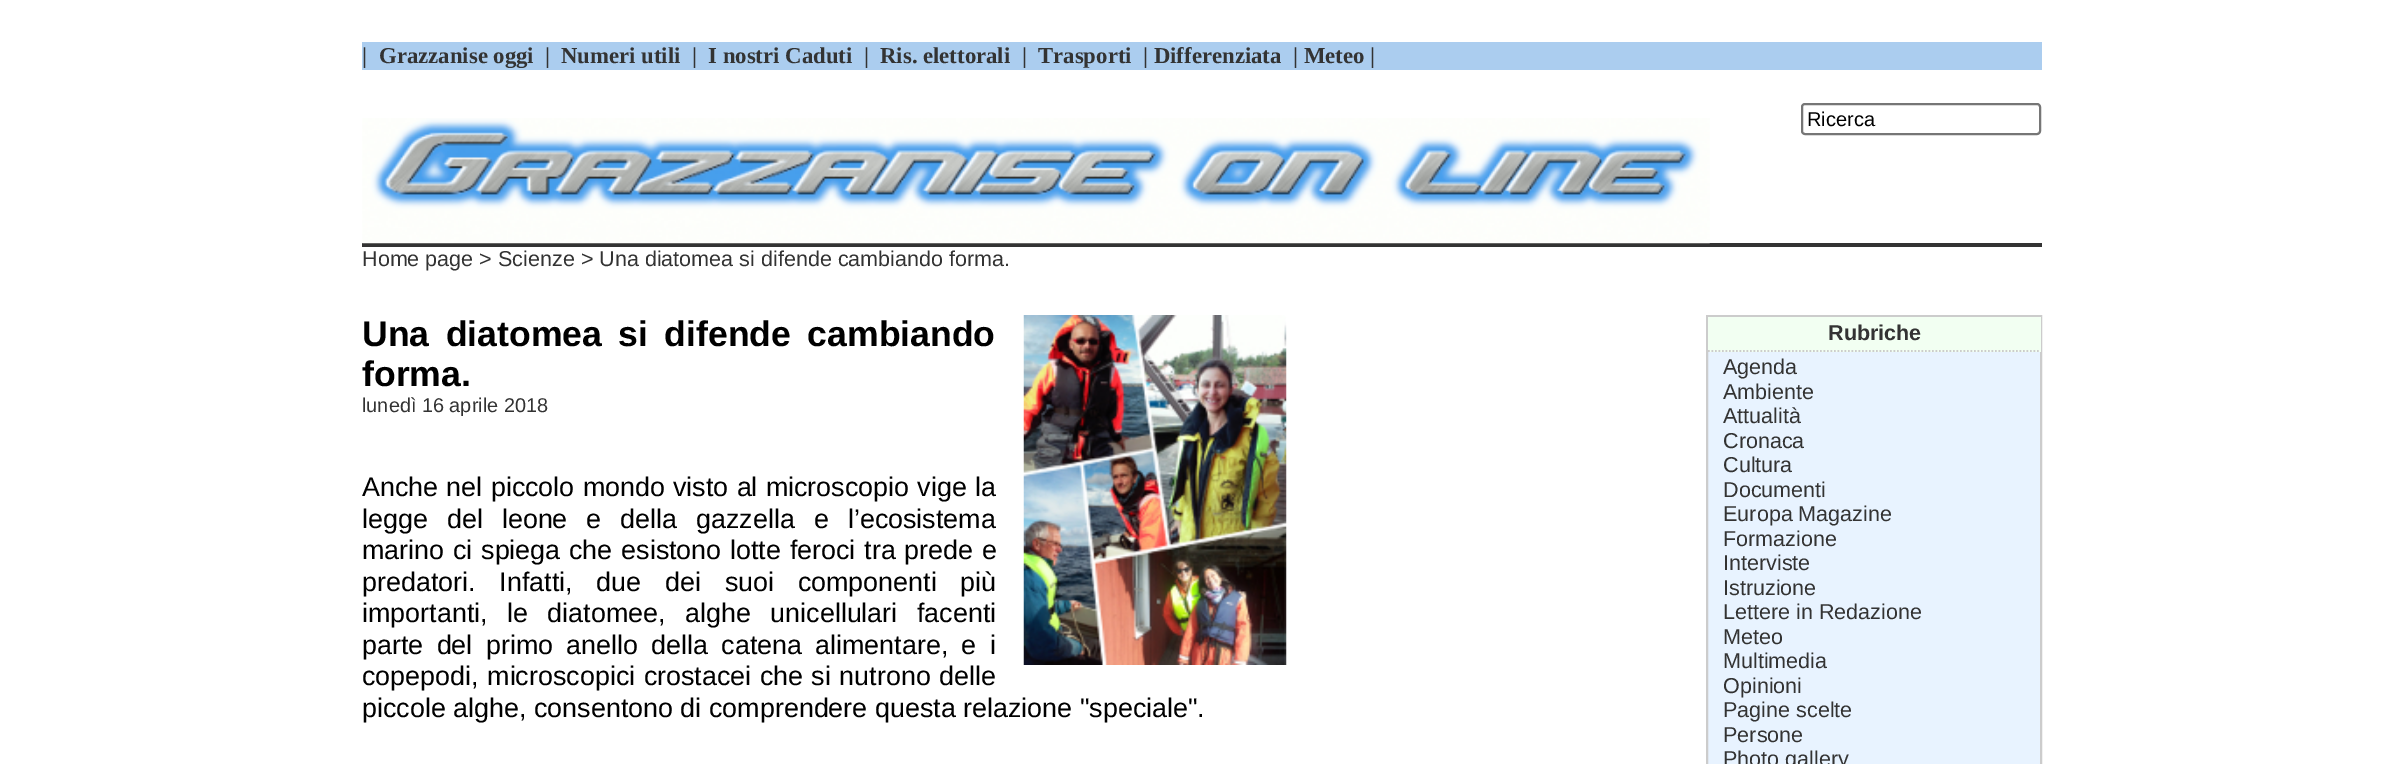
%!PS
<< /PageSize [2403 764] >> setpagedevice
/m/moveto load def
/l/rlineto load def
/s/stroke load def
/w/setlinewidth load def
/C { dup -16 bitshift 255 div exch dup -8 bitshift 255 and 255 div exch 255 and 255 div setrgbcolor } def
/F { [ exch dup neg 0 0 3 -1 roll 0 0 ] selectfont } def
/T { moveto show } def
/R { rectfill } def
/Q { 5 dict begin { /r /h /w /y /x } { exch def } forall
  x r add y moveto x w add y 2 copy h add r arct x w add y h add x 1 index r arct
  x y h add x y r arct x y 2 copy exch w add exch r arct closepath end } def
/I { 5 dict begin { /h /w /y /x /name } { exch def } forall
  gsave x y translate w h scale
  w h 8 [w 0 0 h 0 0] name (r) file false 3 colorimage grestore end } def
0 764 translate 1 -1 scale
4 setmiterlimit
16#FFFFFF C
0 0 2403 764 R
16#ABCDEF C
362 42 1680 28 R
/LiberationSerif-Bold 22.75 F
16#333333 C
(|) 362 63 T
(Grazzanise oggi) 379 63 T
(|) 545 63 T
(Numeri utili) 561 63 T
(|) 692 63 T
(I nostri Caduti) 708 63 T
(|) 864 63 T
(Ris. elettorali) 880 63 T
(|) 1022 63 T
(Trasporti) 1038 63 T
(| Differenziata) 1143 63 T
(| Meteo |) 1293 63 T
362 243 1680 4 R
(1.rgb) 362 118 1348 126 I
16#767676 C
2 w
1802 104 238 30 3 Q s
/LiberationSans-Regular 20 F
16#000000 C
(Ricerca) 1807 126 T
/LiberationSans-Regular 21.55 F
16#333333 C
(Home page > Scienze > Una diatomea si difende cambiando forma.) 362 266 T
/LiberationSans-Bold 35.6 F
16#000000 C
362 346 m 6.5 0 32 (Una diatomea si difende cambiando) widthshow
(forma.) 362 386 T
(2.rgb) 1023 315 264 350 I
/LiberationSans-Regular 19.9 F
16#333333 C
(lunedì 16 aprile 2018) 362 412 T
/LiberationSans-Regular 26.9 F
16#000000 C
362 496 m .75 0 32 (Anche nel piccolo mondo visto al microscopio vige la) widthshow
362 528 m 11.5 0 32 (legge del leone e della gazzella e l’ecosistema) widthshow
362 559 m 1.25 0 32 (marino ci spiega che esistono lotte feroci tra prede e) widthshow
362 591 m 16.25 0 32 (predatori. Infatti, due dei suoi componenti più) widthshow
362 622 m 12 0 32 (importanti, le diatomee, alghe unicellulari facenti) widthshow
362 654 m 5.75 0 32 (parte del primo anello della catena alimentare, e i) widthshow
362 685 m 1 0 32 (copepodi, microscopici crostacei che si nutrono delle) widthshow
(piccole alghe, consentono di comprendere questa relazione "speciale".) 362 717 T
16#E8F3FF C
1708 352 332 412 R
16#CCCCCC C
1707 316 334 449 rectstroke
16#F2FFF2 C
1708 317 333 35 R
16#CCCCCC C
1.8 w
[1.75 1.75] 0 setdash
1708 351 m 332.5 0 l s
/LiberationSans-Bold 21.55 F
16#333333 C
(Rubriche) 1828 340 T
/LiberationSans-Regular 21.55 F
(Agenda) 1723 374 T
(Ambiente) 1723 399 T
(Attualità) 1723 423 T
(Cronaca) 1723 448 T
(Cultura) 1723 472 T
(Documenti) 1723 497 T
(Europa Magazine) 1723 521 T
(Formazione) 1723 546 T
(Interviste) 1723 570 T
(Istruzione) 1723 595 T
(Lettere in Redazione) 1723 619 T
(Meteo) 1723 644 T
(Multimedia) 1723 668 T
(Opinioni) 1723 693 T
(Pagine scelte) 1723 717 T
(Persone) 1723 742 T
(Photo gallery) 1723 766 T
showpage
